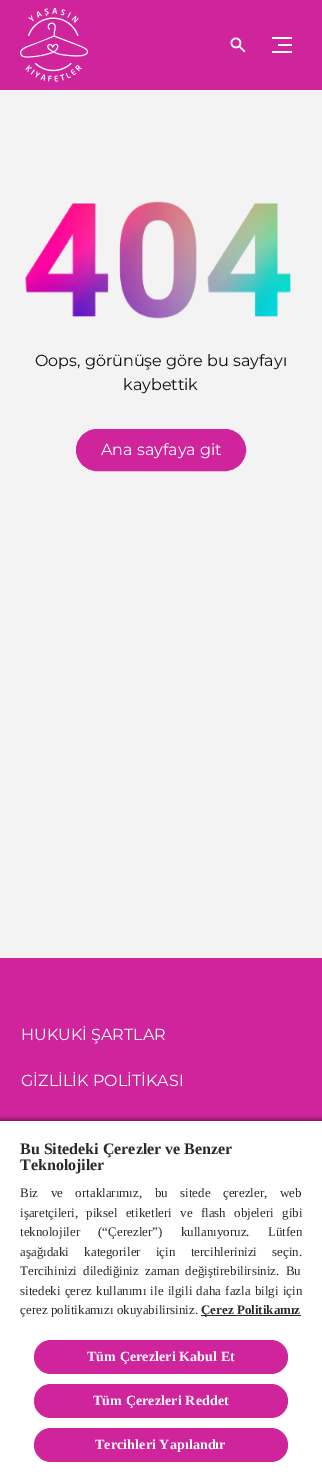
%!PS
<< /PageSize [322 1472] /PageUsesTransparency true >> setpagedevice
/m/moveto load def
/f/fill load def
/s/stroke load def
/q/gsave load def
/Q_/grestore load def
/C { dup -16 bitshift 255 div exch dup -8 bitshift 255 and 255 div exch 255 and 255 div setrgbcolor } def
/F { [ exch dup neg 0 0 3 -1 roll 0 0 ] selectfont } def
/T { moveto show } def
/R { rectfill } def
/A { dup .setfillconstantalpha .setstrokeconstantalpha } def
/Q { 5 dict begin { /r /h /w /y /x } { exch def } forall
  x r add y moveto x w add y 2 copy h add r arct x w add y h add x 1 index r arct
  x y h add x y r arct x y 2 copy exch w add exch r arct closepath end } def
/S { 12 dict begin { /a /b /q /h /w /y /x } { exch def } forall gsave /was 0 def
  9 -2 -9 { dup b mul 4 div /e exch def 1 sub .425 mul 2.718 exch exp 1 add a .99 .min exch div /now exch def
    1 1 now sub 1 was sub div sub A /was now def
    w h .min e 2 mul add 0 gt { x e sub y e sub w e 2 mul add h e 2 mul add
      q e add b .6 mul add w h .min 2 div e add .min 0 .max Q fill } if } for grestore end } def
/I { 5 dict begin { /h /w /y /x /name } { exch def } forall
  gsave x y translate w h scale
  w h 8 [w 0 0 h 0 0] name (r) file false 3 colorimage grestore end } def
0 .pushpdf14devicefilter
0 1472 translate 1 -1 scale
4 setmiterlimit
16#F3F3F3 C
0 0 322 1472 R
16#CF249C C
0 0 322 90 R
(1.rgb) 20 8 68 74 I
(2.rgb) 230 37 16 16 I
16#FFFFFF C
272 37 20 2 R
278 44 14 2 R
272 51 20 2 R
(3.rgb) 25 201 266 118 I
/Montserrat-Regular 16 F
16#101010 C
(Oops, görünüşe göre bu sayfayı) 35 366 T
(kaybettik) 123 390 T
16#CF249C C
76.5 429.5 169 41 20.5 Q q f Q_
s
16#FFFFFF C
(Ana sayfaya git) 101 455 T
16#CF249C C
0 958 322 163 R
16#FFFFFF C
(HUKUKİ ŞARTLAR) 21 1040 T
(GİZLİLİK POLİTİKASI) 21 1086 T
16#000000 C
0 1119 322 353 0 2 .35 S
0 1121 322 351 0 2 .2 S
16#FFFFFF C
0 1121 322 351 R
/LiberationSerif-Bold 16 F
16#292929 C
(Bu Sitedeki Çerezler ve Benzer) 20 1154 T
(Teknolojiler) 20 1170 T
/LiberationSerif-Regular 13 F
20 1197 m 9.25 0 32 (Biz ve ortaklarımız, bu sitede çerezler, web) widthshow
20 1217 m 5 0 32 (işaretçileri, piksel etiketleri ve flash objeleri gibi) widthshow
20 1236 m 15 0 32 (teknolojiler \(“Çerezler”\) kullanıyoruz. Lütfen) widthshow
20 1256 m 12 0 32 (aşağıdaki kategoriler için tercihlerinizi seçin.) widthshow
20 1275 m 3 0 32 (Tercihinizi dilediğiniz zaman değiştirebilirsiniz. Bu) widthshow
20 1295 m 1 0 32 (sitedeki çerez kullanımı ile ilgili daha fazla bilgi için) widthshow
(çerez politikamızı okuyabilirsiniz.) 20 1314 T
201 1315 100 1 R
/LiberationSerif-Bold 13 F
(Çerez Politikamız) 201 1314 T
16#CF249C C
34 1340 254 34 17 Q f
/LiberationSerif-Bold 14 F
16#FFFFFF C
87 1361 m .1 0 (Tüm Çerezleri Kabul Et) ashow
16#CF249C C
34 1384 254 34 17 Q f
16#FFFFFF C
93 1405 m .1 0 (Tüm Çerezleri Reddet) ashow
16#CF249C C
34 1428 254 34 17 Q f
16#FFFFFF C
95 1449 m .1 0 (Tercihleri Yapılandır) ashow
.poppdf14devicefilter showpage
